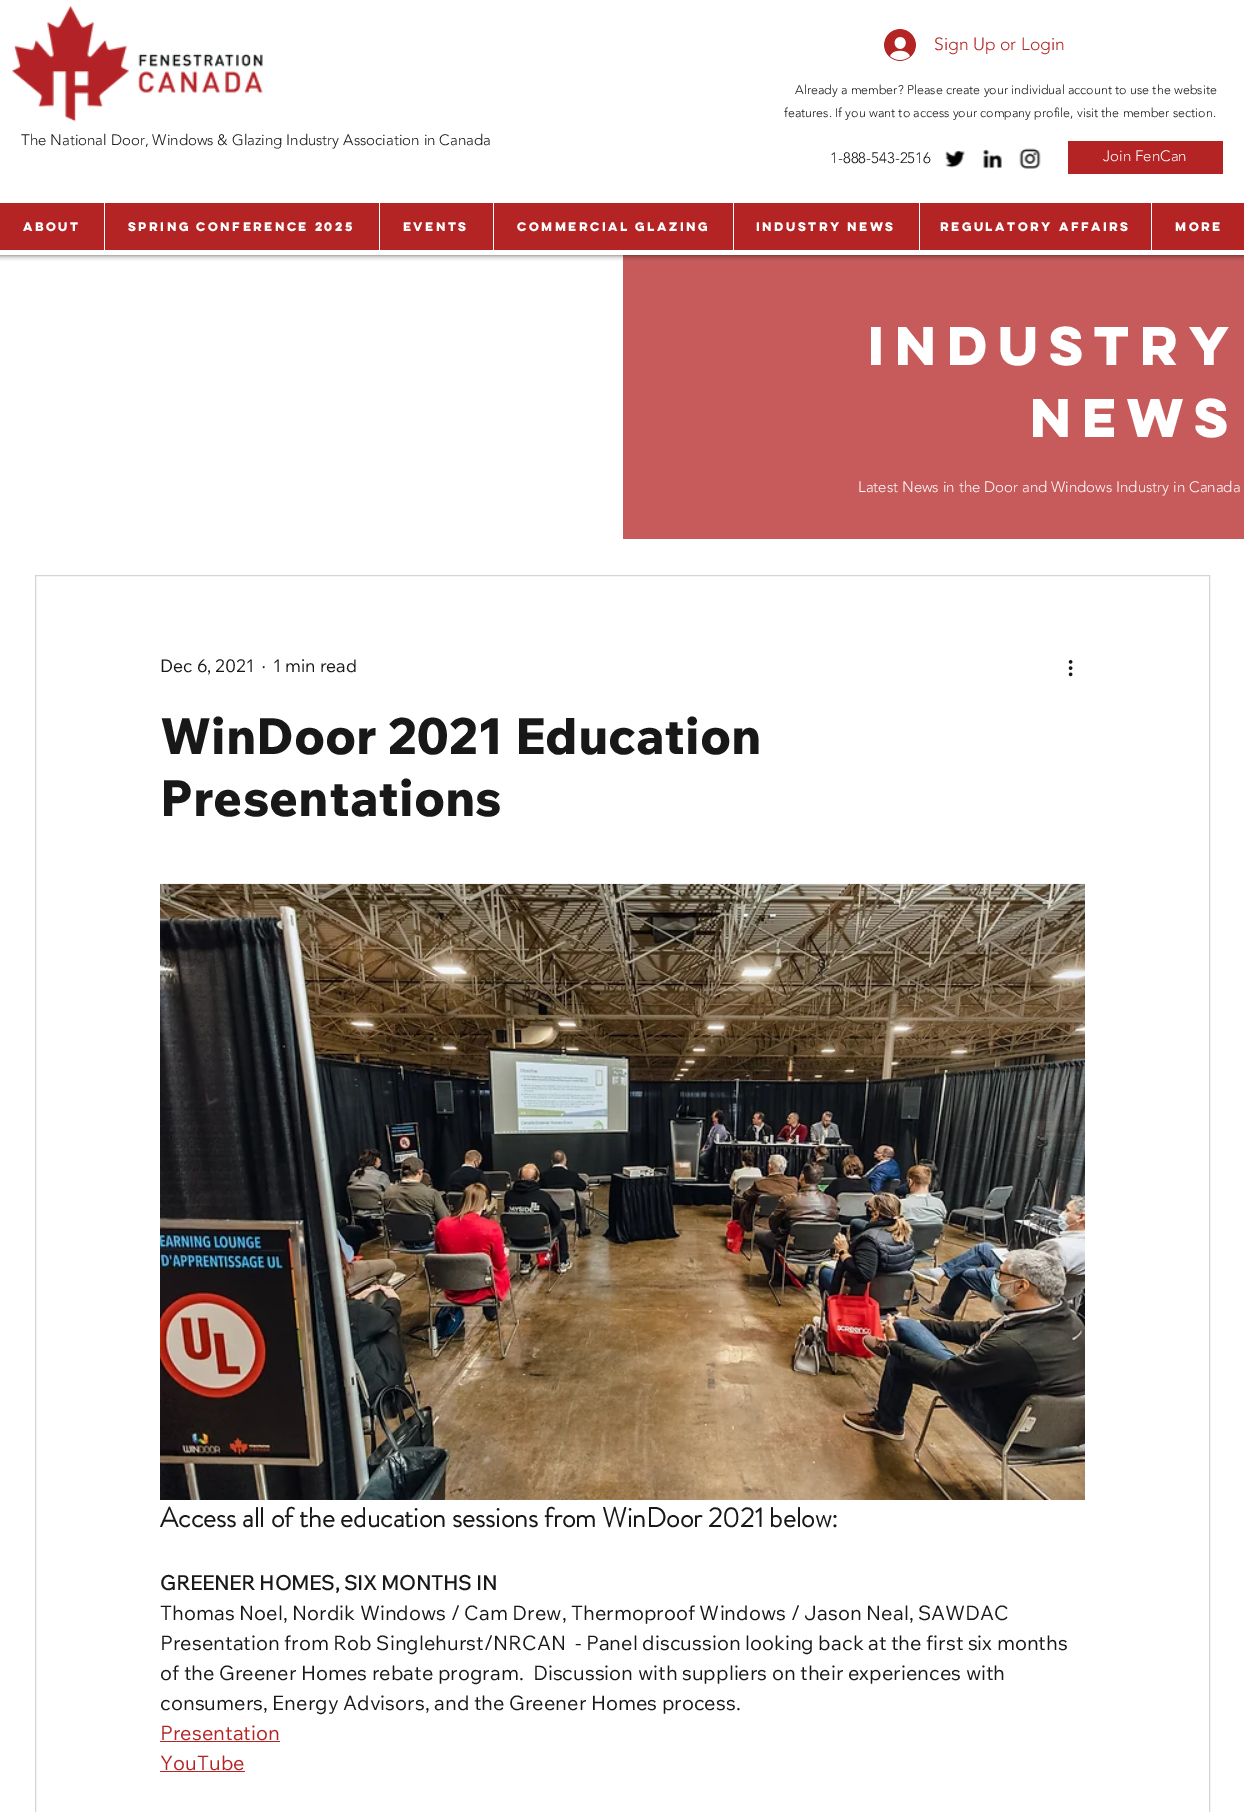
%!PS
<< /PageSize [1244 1812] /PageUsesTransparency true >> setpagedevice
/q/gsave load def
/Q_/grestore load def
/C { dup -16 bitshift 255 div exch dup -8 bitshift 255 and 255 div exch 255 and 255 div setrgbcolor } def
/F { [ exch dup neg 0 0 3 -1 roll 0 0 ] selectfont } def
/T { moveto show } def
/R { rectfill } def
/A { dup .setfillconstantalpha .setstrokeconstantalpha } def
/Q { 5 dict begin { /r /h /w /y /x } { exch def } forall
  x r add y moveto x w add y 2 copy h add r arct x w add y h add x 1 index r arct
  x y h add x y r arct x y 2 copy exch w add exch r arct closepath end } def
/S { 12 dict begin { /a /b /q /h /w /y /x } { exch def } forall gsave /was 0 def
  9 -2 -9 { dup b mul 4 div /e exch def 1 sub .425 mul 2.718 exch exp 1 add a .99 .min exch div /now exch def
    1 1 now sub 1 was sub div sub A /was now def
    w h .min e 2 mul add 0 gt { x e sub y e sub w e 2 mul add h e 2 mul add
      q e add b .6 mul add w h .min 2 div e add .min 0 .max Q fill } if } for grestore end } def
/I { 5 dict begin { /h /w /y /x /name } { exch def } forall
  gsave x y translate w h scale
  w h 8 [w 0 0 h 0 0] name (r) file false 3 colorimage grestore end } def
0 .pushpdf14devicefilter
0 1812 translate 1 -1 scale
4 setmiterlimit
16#FFFFFF C
0 0 1244 1812 R
16#C75B5B C
623 255 621 284 R
q
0 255 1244 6 rectclip
16#000000 C
0 0 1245 255 0 3 .7 S
Q_
(1.rgb) 12 6 251 116 I
(2.rgb) 884 29 32 32 I
/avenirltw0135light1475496-Light 17.5 F
16#B42424 C
(Sign Up or Login) 934 50 T
/avenirltw0135light1475496-Light 12.5 F
16#181818 C
(Already a member? Please create your individual account to use the website) 795 94 T
(features. If you want to access your company profile, visit the member section.) 784 117 T
/avenirltw0135light1475496-Light 15 F
(The National Door, Windows & Glazing Industry Association in Canada) 21 145 T
(1-888-543-2516) 830 163 T
(3.rgb) 945 150 21 18 I
(4.rgb) 983 149 19 20 I
(5.rgb) 1019 148 22 21 I
16#B42424 C
1068 141 155 33 R
16#FFFFFF C
(Join FenCan) 1103 161 T
16#B42424 C
0 203 1244 47 R
/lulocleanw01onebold-Bold 11.25 F
16#FFFFFF C
(ABOUT) 23 231 T
104 203 1 47 R
(Spring Conference 2025) 128 231 T
379 203 1 47 R
(Events) 403 231 T
493 203 1 47 R
(Commercial Glazing) 517 231 T
733 203 1 47 R
(Industry News) 756 231 T
919 203 1 47 R
(Regulatory Affairs) 940 231 T
1151 203 1 47 R
(More) 1175 231 T
/lulocleanw01onebold-Bold 48.75 F
(INDUSTRY) 868 365 T
(NEWS) 1030 437 T
/avenirltw0135light1475496-Light 15 F
(Latest News in the Door and Windows Industry in Canada) 858 492 T
16#D4D4D4 C
35.5 575.5 1174 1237 rectstroke
/WixMadeforText-Regular 17.5 F
16#181818 C
(Dec 6, 2021) 160 672 T
(·) 262 672 T
(1 min read) 273 672 T
(6.rgb) 1068 660 5 17 I
/WixMadeforText-ExtraBold 50 F
(WinDoor 2021 Education) 160 754 T
(Presentations) 160 816 T
(7.rgb) 160 883 925 617 I
/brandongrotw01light-Bold 27.5 F
(Access all of the education sessions from WinDoor 2021 below:) 160 1527 T
/WixMadeforText-Bold 20 F
(GREENER HOMES, SIX MONTHS IN) 160 1590 T
/WixMadeforText-Regular 20 F
(Thomas Noel, Nordik Windows / Cam Drew, Thermoproof Windows / Jason Neal, SAWDAC) 160 1620 T
(Presentation from Rob Singlehurst/NRCAN  - Panel discussion looking back at the first six months) 160 1650 T
(of the Greener Homes rebate program.  Discussion with suppliers on their experiences with) 160 1680 T
(consumers, Energy Advisors, and the Greener Homes process.) 160 1710 T
16#B42424 C
(Presentation) 160 1740 T
160 1741 120 1 R
(YouTube) 160 1770 T
160 1771 85 1 R
.poppdf14devicefilter showpage
